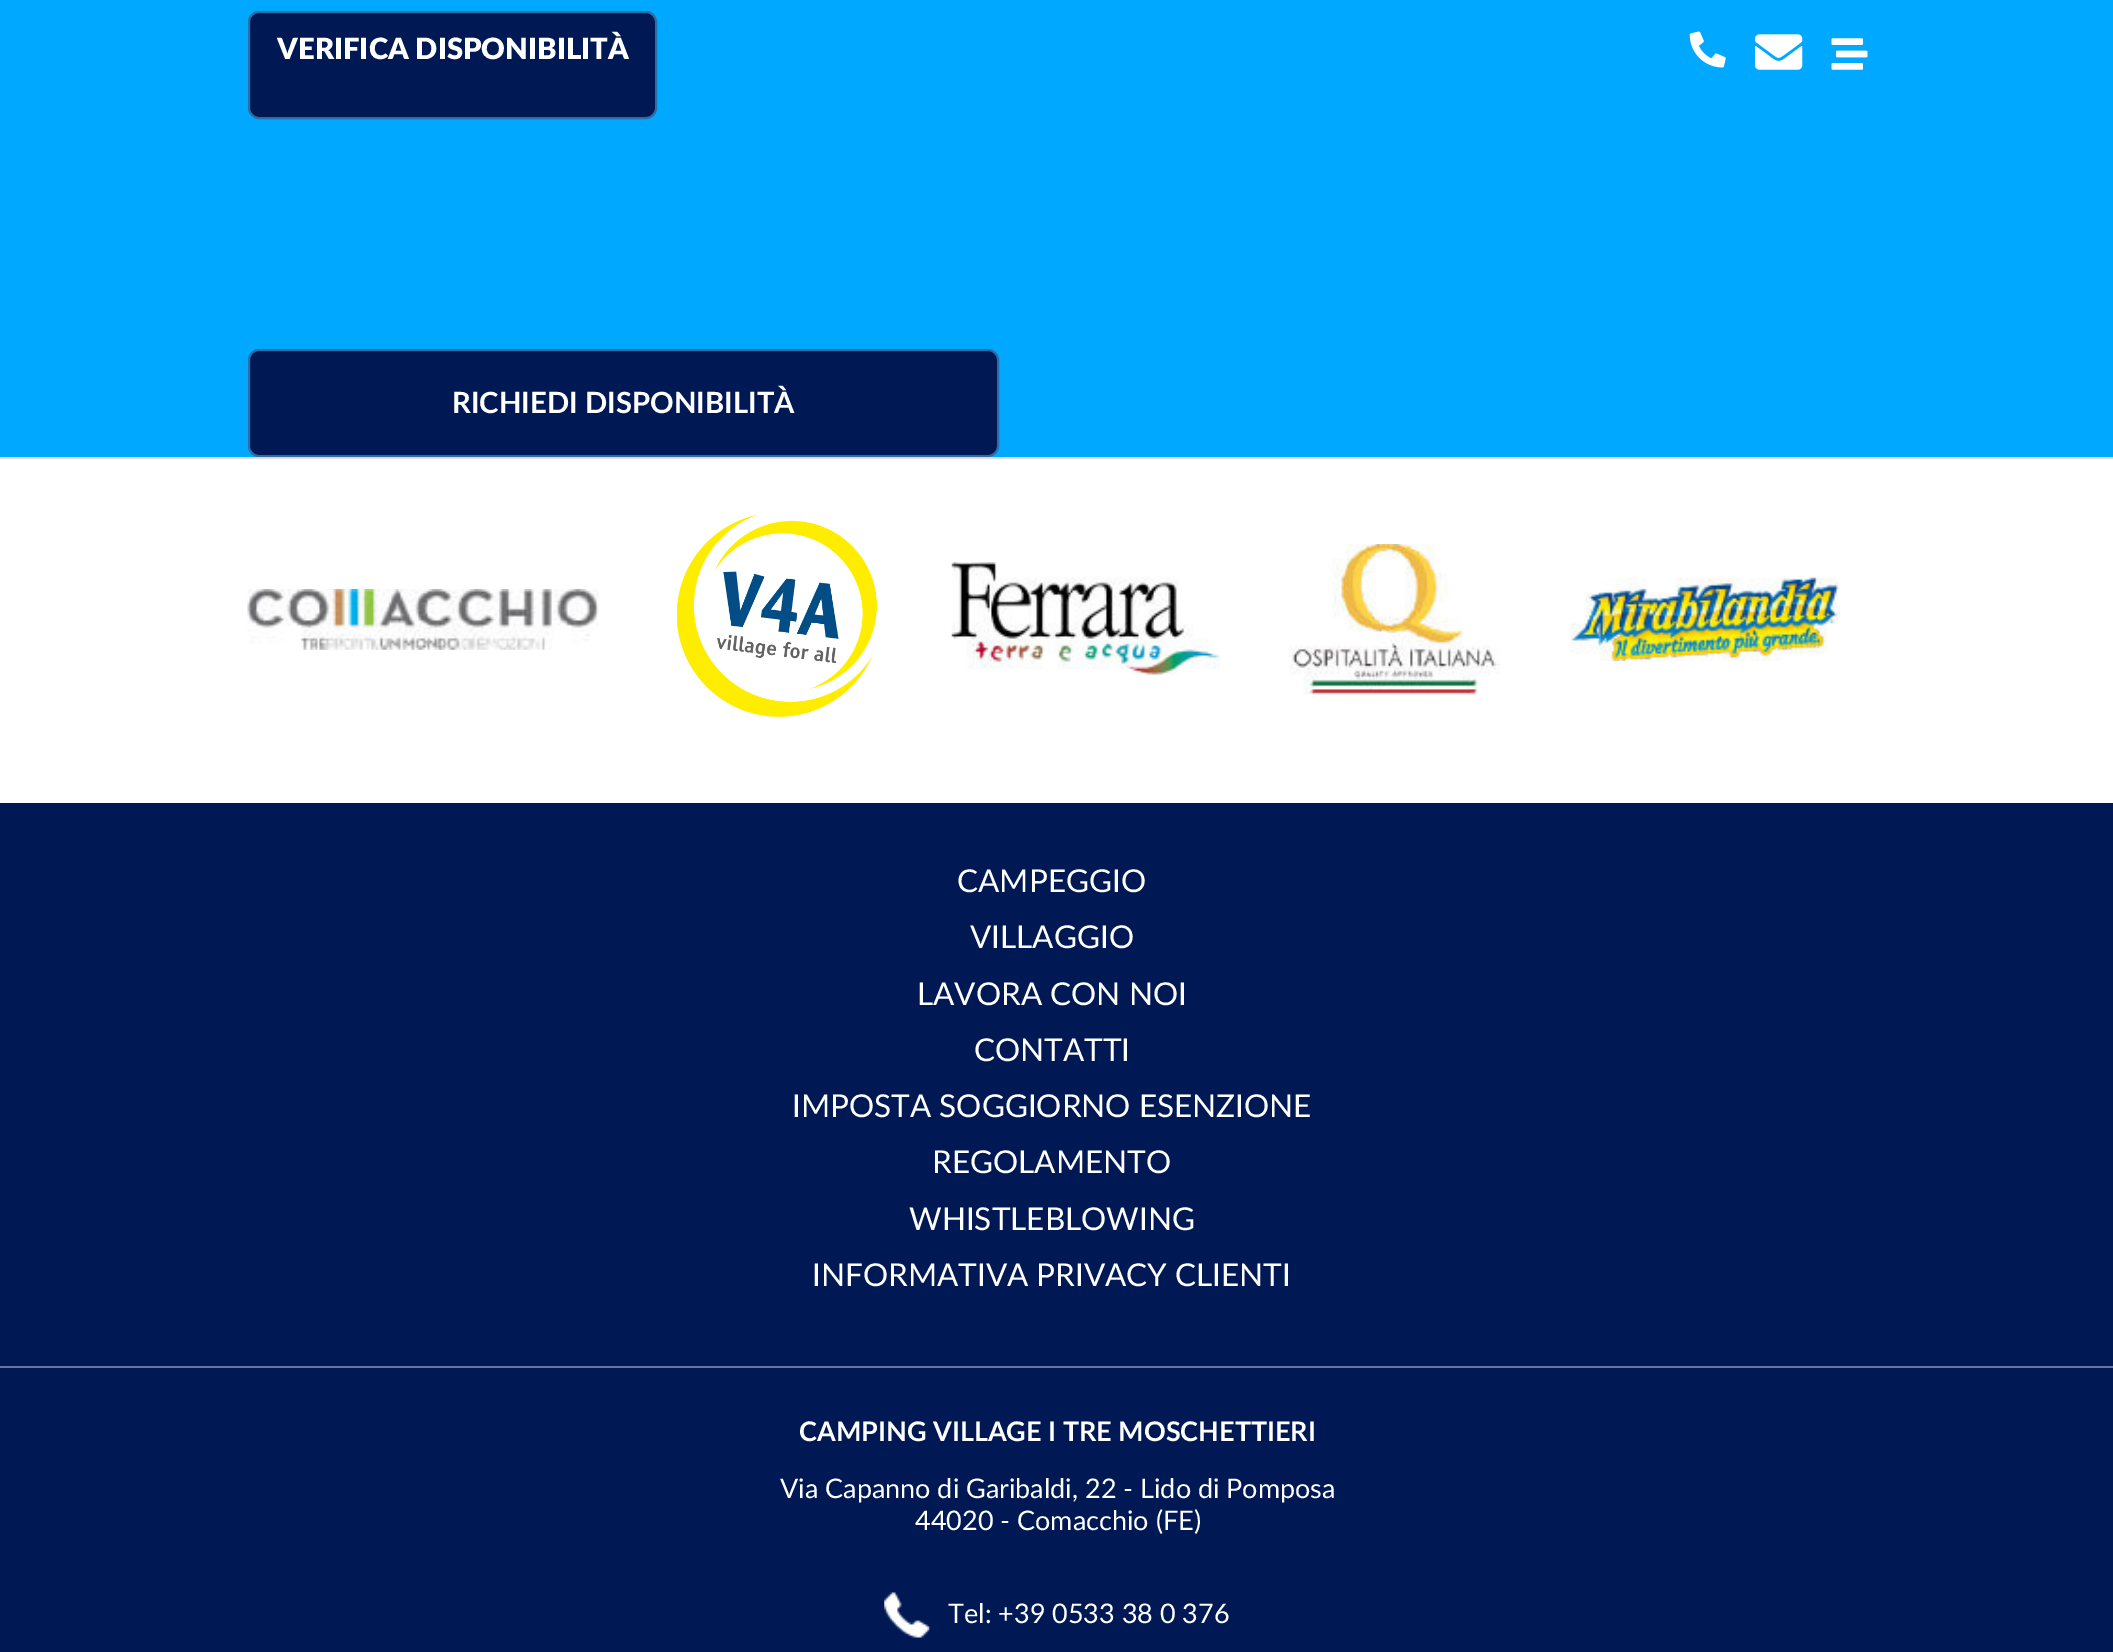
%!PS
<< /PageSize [2113 1652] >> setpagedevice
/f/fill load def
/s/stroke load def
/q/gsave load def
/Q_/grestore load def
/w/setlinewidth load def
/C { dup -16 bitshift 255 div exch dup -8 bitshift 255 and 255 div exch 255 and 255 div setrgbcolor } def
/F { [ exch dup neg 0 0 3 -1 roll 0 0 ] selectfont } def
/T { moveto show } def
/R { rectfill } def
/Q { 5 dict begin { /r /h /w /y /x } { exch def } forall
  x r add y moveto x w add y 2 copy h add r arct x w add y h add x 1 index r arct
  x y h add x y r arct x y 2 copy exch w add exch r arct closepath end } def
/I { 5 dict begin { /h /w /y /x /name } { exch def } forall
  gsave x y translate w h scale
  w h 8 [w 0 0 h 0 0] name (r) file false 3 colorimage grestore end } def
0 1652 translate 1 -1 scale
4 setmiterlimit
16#FFFFFF C
0 0 2113 1652 R
16#00A8FF C
0 0 2113 457 R
16#001954 C
249 12 407 106 10 Q q f Q_
16#2E6DA4 C
2 w
s
/Lato-Black 29.25 F
16#FFFFFF C
(VERIFICA DISPONIBILITÀ) 277 59 T
(1.rgb) 1689 31 37 37 I
(2.rgb) 1755 34 48 36 I
(3.rgb) 1831 38 37 32 I
16#001954 C
249 350 749 106 10 Q q f Q_
16#2E6DA4 C
s
/Lato-Bold 29.25 F
16#FFFFFF C
(RICHIEDI DISPONIBILITÀ) 452 413 T
16#DDDDDD C
0 457 2113 2 R
(4.rgb) 247 589 352 61 I
(5.rgb) 676 514 201 203 I
(6.rgb) 951 562 269 113 I
(7.rgb) 1289 544 212 151 I
(8.rgb) 1570 577 269 84 I
16#001954 C
0 803 2113 849 R
/Lato-Regular 31.5 F
16#FFFFFF C
(CAMPEGGIO) 957 892 T
(VILLAGGIO) 970 948 T
(LAVORA CON NOI) 917 1005 T
(CONTATTI) 974 1061 T
(IMPOSTA SOGGIORNO ESENZIONE) 792 1117 T
(REGOLAMENTO) 932 1173 T
(WHISTLEBLOWING) 909 1230 T
(INFORMATIVA PRIVACY CLIENTI) 812 1286 T
16#667598 C
0 1366 2113 2 R
/Lato-Bold 27 F
16#FFFFFF C
(CAMPING VILLAGE I TRE MOSCHETTIERI) 799 1441 T
/Lato-Regular 27 F
(Via Capanno di Garibaldi, 22 - Lido di Pomposa) 780 1498 T
(44020 - Comacchio \(FE\)) 915 1530 T
(9.rgb) 884 1592 46 46 I
(Tel: +39 0533 38 0 376) 948 1623 T
showpage
